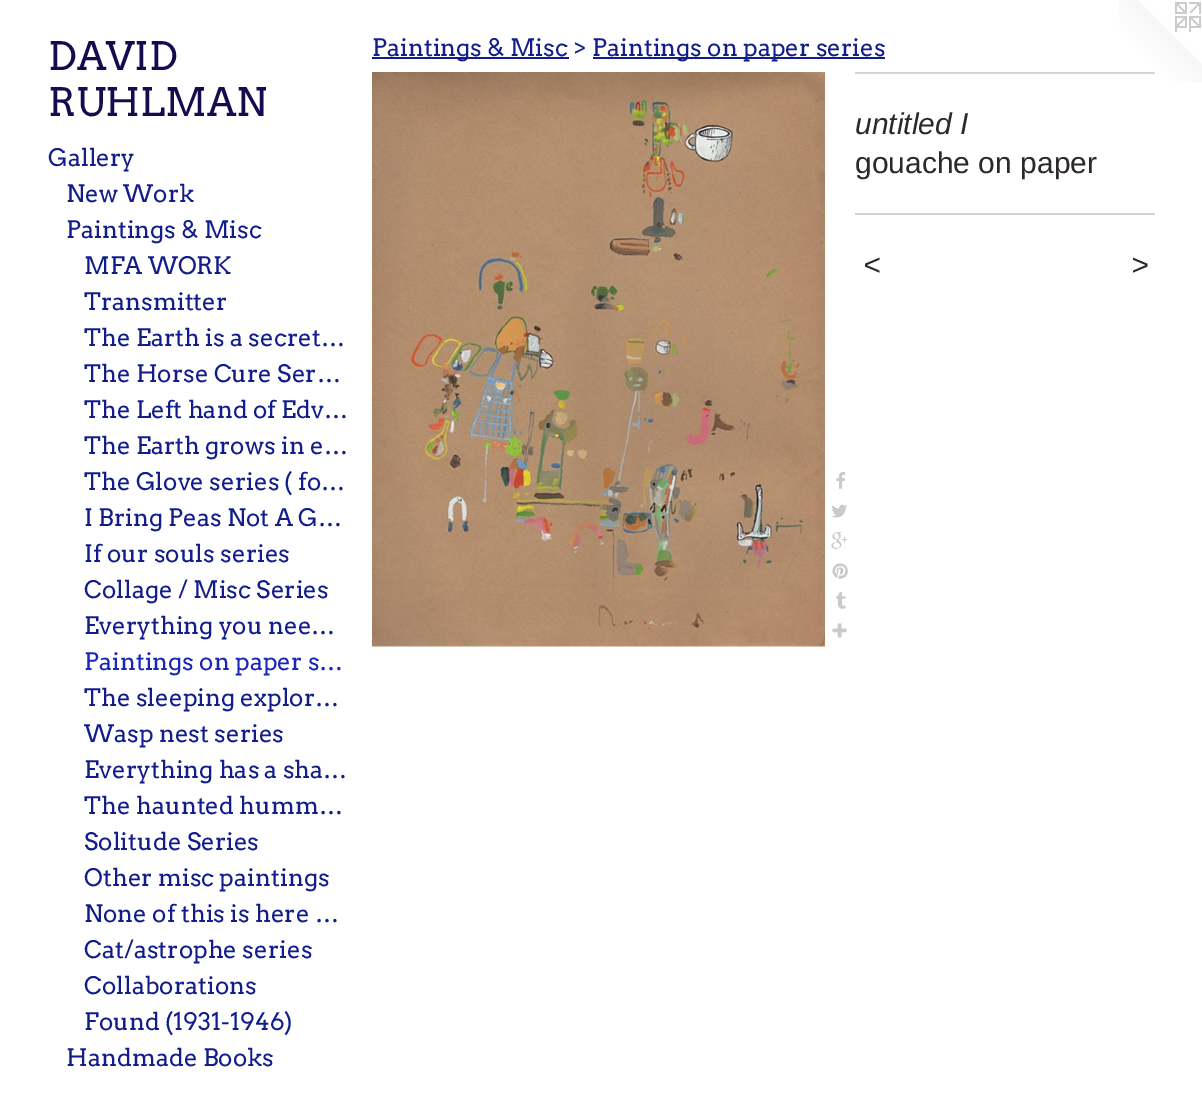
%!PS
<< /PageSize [1202 1096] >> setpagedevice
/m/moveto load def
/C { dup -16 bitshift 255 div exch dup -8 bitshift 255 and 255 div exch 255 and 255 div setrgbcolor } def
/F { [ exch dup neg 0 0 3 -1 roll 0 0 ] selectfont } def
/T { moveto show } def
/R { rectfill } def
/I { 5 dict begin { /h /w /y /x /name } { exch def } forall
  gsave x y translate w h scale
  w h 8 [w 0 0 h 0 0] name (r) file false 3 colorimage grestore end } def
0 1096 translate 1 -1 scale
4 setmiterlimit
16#FFFFFF C
0 0 1202 1096 R
/Arvo-Regular 39 F
16#150C50 C
(DAVID) 48 70 T
(RUHLMAN) 48 116 T
/Arvo-Regular 24 F
16#121D8C C
(Gallery) 48 166 T
(New Work) 66 202 T
(Paintings & Misc) 66 238 T
(MFA WORK) 84 274 T
(Transmitter) 84 310 T
(The Earth is a secret…) 84 346 T
(The Horse Cure Ser…) 84 382 T
(The Left hand of Edv…) 84 418 T
(The Earth grows in e…) 84 454 T
(The Glove series \( fo…) 84 490 T
(I Bring Peas Not A G…) 84 526 T
(If our souls series) 84 562 T
(Collage / Misc Series) 84 598 T
(Everything you nee…) 84 634 T
16#1826B9 C
(Paintings on paper s…) 84 670 T
16#121D8C C
(The sleeping explor…) 84 706 T
(Wasp nest series) 84 742 T
(Everything has a sha…) 84 778 T
(The haunted humm…) 84 814 T
(Solitude Series) 84 850 T
(Other misc paintings) 84 886 T
(None of this is here …) 84 922 T
(Cat/astrophe series) 84 958 T
(Collaborations) 84 994 T
(Found \(1931-1946\)) 84 1030 T
(Handmade Books) 66 1066 T
372 57 197 2 R
(Paintings & Misc >) 372 56 T
593 57 292 2 R
(Paintings on paper series) 592 56 T
(1.rgb) 372 72 453 575 I
(2.rgb) 836 472 10 17 I
(3.rgb) 832 504 15 14 I
(4.rgb) 831 532 17 17 I
(5.rgb) 832 563 16 16 I
(6.rgb) 836 592 10 17 I
(7.rgb) 832 623 15 15 I
(8.rgb) 1119 0 83 83 I
16#D5D4D4 C
855 72 300 2 R
/LiberationSans-Italic 30 F
16#2E2929 C
(untitled I) 855 134 T
/LiberationSans-Regular 30 F
(gouache on paper) 855 173 T
16#D5D4D4 C
855 213 300 2 R
/LiberationSans-Italic 30 F
16#2E2929 C
863 275 m 2 0 (<) ashow
1131 275 m 2 0 (>) ashow
showpage
